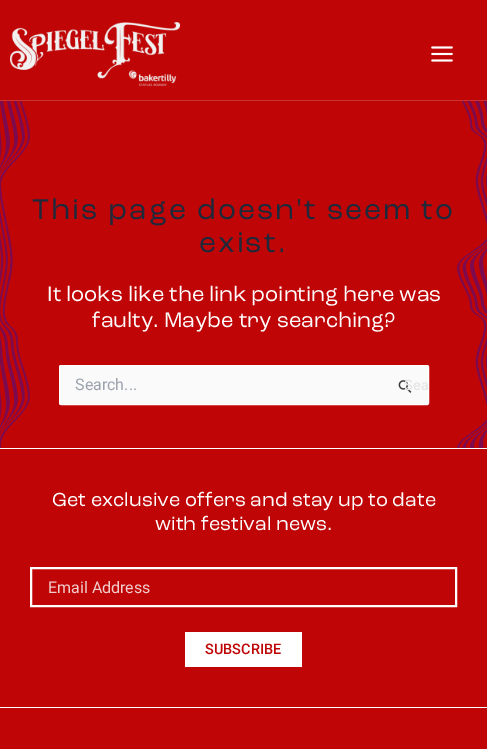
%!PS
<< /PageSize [487 749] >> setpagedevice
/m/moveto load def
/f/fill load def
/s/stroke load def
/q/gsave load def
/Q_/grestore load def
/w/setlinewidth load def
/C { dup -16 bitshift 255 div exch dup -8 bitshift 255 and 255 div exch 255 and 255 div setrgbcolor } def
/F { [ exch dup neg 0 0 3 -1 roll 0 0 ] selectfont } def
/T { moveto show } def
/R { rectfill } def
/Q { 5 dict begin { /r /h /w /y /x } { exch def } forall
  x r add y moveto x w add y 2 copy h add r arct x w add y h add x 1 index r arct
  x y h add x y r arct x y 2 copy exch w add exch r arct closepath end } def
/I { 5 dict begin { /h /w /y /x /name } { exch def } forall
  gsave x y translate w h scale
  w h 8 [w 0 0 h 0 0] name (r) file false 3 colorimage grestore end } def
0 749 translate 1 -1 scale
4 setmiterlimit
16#BF0505 C
0 0 487 749 R
(1.rgb) 0 101 30 347 I
16#CB3232 C
0 100 487 1 R
(2.rgb) 10 22 170 64 I
(3.rgb) 431 46 22 16 I
/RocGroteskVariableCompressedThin-Regular 30 F
16#1E293B C
32 219 m 2 0 (This page doesn't seem to) ashow
199 252 m 2 0 (exist.) ashow
/RocGroteskVariableCompressedThin-Regular 21.9 F
16#FFFFFF C
(It looks like the link pointing here was) 47 301 T
(faulty. Maybe try searching?) 92 327 T
16#FAFAFA C
59.5 365.5 369 39 1.5 Q q f Q_
16#FFFFFF C
s
/Roboto-Regular 16 F
16#9CA3AF C
(Search...) 75 390 T
(4.rgb) 398 380 14 13 I
/Roboto-Medium 14.5 F
16#E6E6E6 C
(Sea) 404 390 T
16#FFFFFF C
0 448 487 1 R
/RocGroteskVariableCompressedThin-Regular 20 F
(Get exclusive offers and stay up to date) 52 506 T
(with festival news.) 155 530 T
2 w
31 568 425 38 rectstroke
/Roboto-Regular 16 F
16#F2CDCD C
(Email Address) 48 593 T
16#FFFFFF C
185 632 117 35 R
/Roboto-Medium 14.5 F
16#BF0505 C
(SUBSCRIBE) 205 654 T
16#FFFFFF C
0 707 487 1 R
(5.rgb) 457 101 30 347 I
showpage
